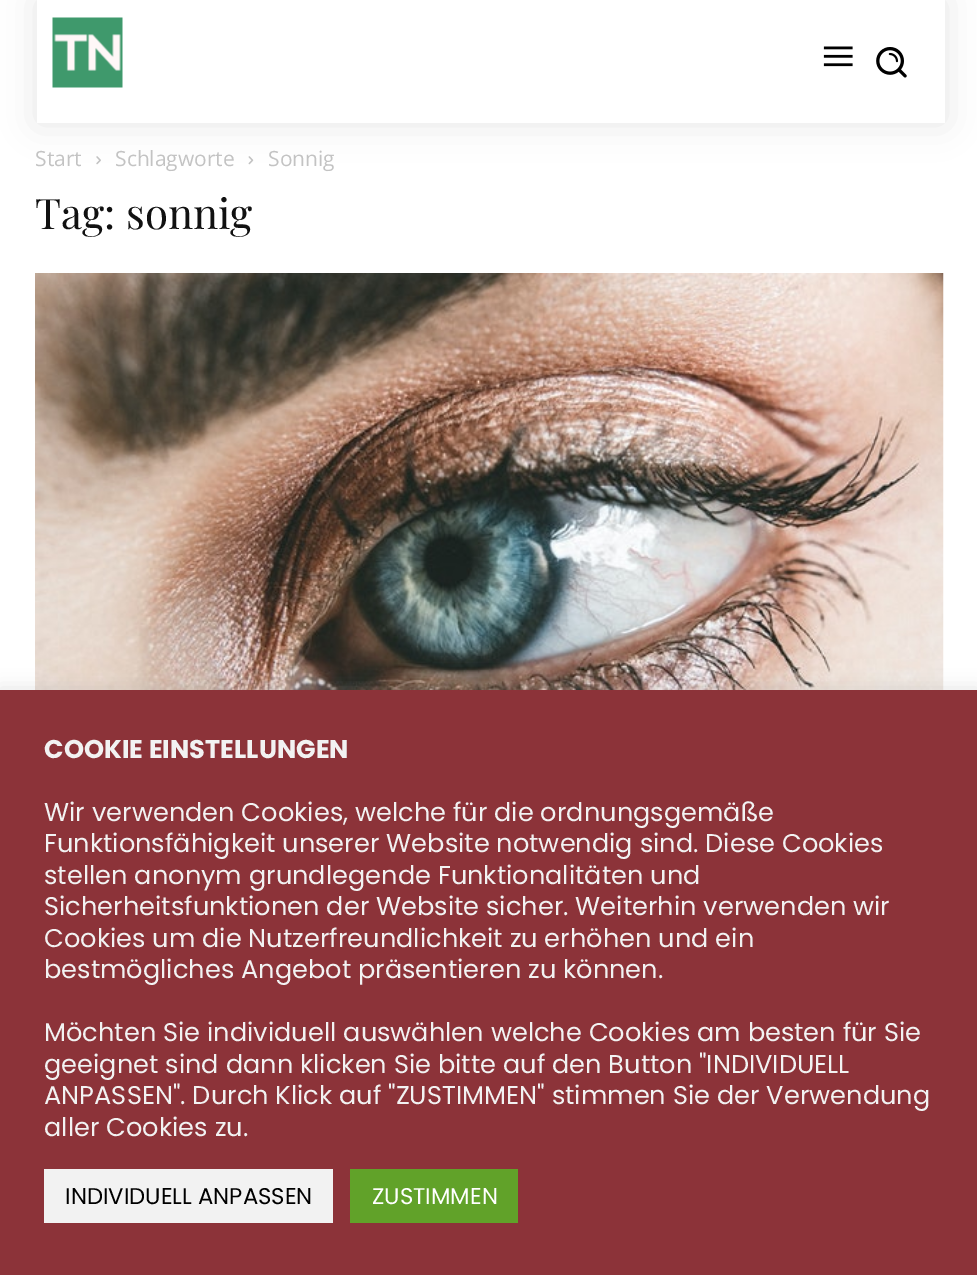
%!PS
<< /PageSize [977 1275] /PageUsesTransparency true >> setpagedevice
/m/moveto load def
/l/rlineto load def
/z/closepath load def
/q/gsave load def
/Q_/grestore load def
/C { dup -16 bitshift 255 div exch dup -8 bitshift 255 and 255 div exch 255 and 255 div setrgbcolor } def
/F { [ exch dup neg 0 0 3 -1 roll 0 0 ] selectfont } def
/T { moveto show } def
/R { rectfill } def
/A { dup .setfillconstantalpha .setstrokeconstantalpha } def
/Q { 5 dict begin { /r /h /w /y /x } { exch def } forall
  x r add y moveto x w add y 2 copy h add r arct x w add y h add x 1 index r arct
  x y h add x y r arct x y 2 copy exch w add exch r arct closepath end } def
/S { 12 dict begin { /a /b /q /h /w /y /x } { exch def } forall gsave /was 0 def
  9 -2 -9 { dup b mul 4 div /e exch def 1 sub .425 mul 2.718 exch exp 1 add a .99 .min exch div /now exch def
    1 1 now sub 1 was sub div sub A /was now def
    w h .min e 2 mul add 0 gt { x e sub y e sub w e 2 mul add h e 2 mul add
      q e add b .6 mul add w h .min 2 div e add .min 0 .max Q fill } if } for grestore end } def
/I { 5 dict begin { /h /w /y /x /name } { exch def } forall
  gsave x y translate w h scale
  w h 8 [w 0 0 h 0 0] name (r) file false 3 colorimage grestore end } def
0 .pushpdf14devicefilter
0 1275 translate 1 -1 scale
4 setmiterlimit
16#FFFFFF C
0 0 977 1275 R
(1.rgb) 52 17 71 71 I
(2.rgb) 823 46 30 21 I
(3.rgb) 876 47 31 31 I
(4.rgb) 96 156 5 9 I
(5.rgb) 248 156 6 9 I
q
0 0 m 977 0 l 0 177 l -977 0 l z 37 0 m 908 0 l 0 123 l -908 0 l z eoclip newpath
16#000000 C
37 0 908 123 0 17.5 .1 S
Q_
/OpenSans-Regular 21 F
16#C3C3C3 C
(Start) 35 166 T
(Schlagworte) 115 166 T
(Sonnig) 268 166 T
/PlayfairDisplay-Regular 42 F
16#111111 C
(Tag: sonnig) 35 229 T
(6.rgb) 35 273 909 417 I
16#ACABAB C
0 688 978 586 0 9 .3 S
16#8C3339 C
0 690 977 585 R
/Poppins-Bold 25.65 F
16#F2F2F2 C
(COOKIE EINSTELLUNGEN) 44 758 T
/Poppins-Regular 25.65 F
(Wir verwenden Cookies, welche für die ordnungsgemäße) 44 821 T
(Funktionsfähigkeit unserer Website notwendig sind. Diese Cookies) 44 852 T
(stellen anonym grundlegende Funktionalitäten und) 44 884 T
(Sicherheitsfunktionen der Website sicher. Weiterhin verwenden wir) 44 915 T
(Cookies um die Nutzerfreundlichkeit zu erhöhen und ein) 44 947 T
(bestmögliches Angebot präsentieren zu können.) 44 978 T
(Möchten Sie individuell auswählen welche Cookies am besten für Sie) 44 1041 T
(geeignet sind dann klicken Sie bitte auf den Button "INDIVIDUELL) 44 1073 T
(ANPASSEN". Durch Klick auf "ZUSTIMMEN" stimmen Sie der Verwendung) 44 1104 T
(aller Cookies zu.) 44 1136 T
44 1169 289 54 R
/Poppins-Regular 22.75 F
16#000000 C
(INDIVIDUELL ANPASSEN) 65 1204 T
16#61A229 C
350 1169 168 54 R
16#FFFFFF C
(ZUSTIMMEN) 372 1204 T
.poppdf14devicefilter showpage
